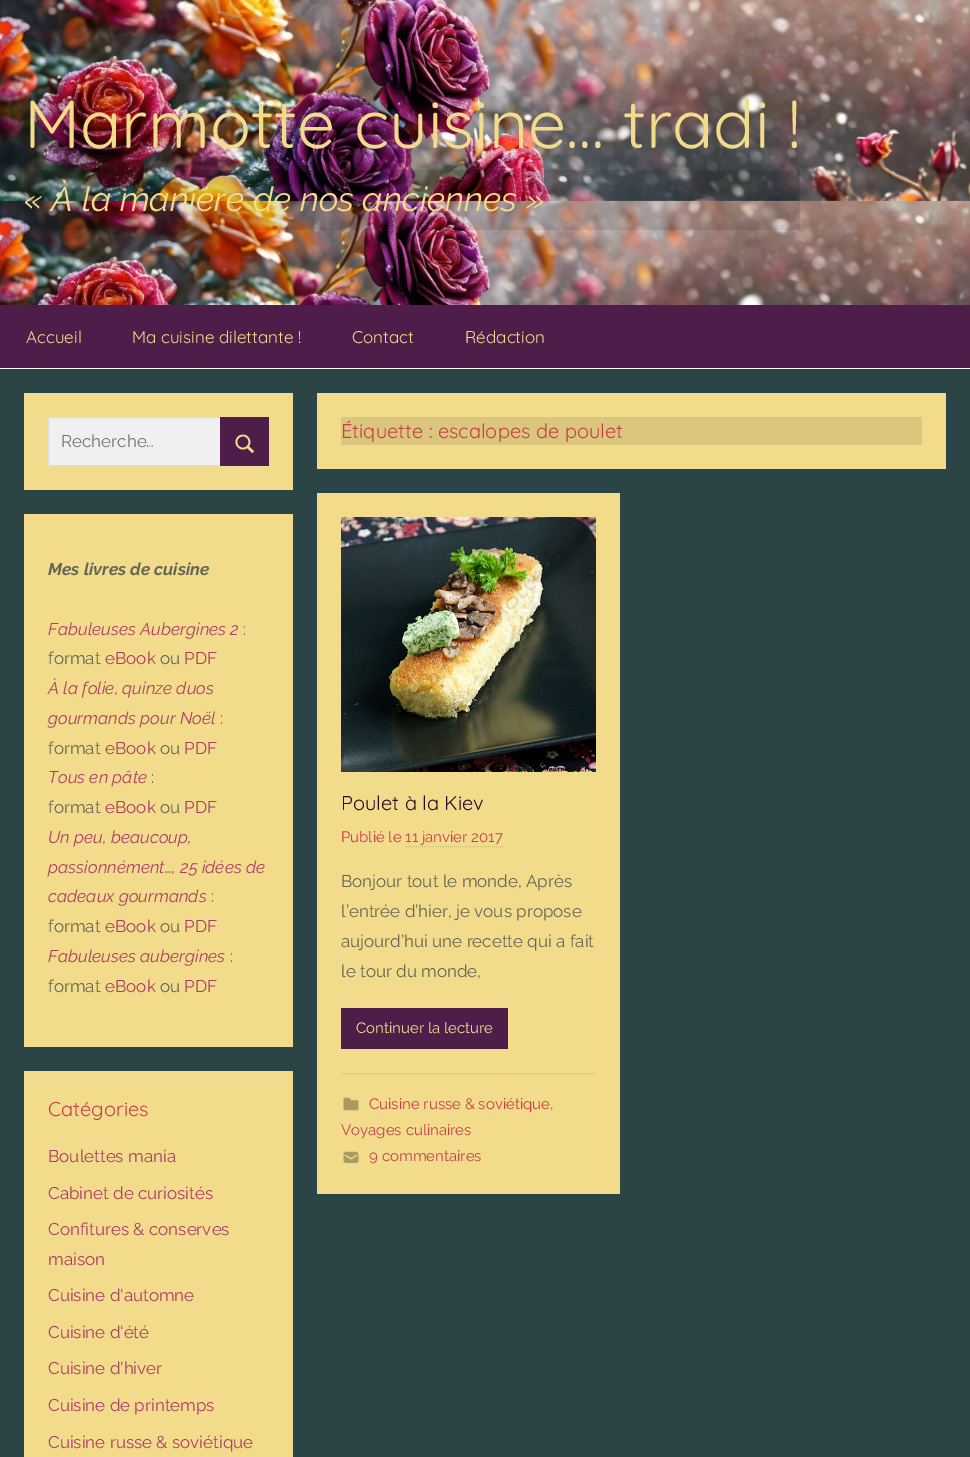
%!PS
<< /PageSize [970 1457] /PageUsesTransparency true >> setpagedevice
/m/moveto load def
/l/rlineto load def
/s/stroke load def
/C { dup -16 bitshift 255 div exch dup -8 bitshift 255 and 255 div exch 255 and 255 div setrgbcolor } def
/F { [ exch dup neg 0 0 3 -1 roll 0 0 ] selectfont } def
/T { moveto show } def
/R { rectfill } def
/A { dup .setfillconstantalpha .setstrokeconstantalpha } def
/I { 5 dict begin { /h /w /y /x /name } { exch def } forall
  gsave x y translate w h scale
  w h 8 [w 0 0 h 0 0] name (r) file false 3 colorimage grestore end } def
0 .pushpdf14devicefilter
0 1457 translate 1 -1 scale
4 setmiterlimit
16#2B4446 C
0 0 970 1457 R
(1.rgb) 0 0 970 305 I
16#FFFFFF C
0 368 970 1 R
/Quicksand-Regular 68 F
16#F2DC8B C
(Marmotte cuisine… tradi !) 24 148 T
0.1 A
16#000000 C
24 170 776 60 R
/Raleway-Italic 34 F
1 A
16#F2DC8B C
(« À la manière de nos anciennes ») 24 211 T
16#4E1D4A C
0 305 970 63 R
/Quicksand-Regular 17 F
16#F2DC8B C
(Accueil) 26 343 T
(Ma cuisine dilettante !) 132 343 T
(Contact) 352 343 T
(Rédaction) 465 343 T
24 393 269 97 R
16#F0F0F0 C
49 418 171 47 R
16#DEDEDE C
48.5 417.5 220 48 rectstroke
/Raleway-Regular 17 F
16#757575 C
(Recherche…) 61 447 T
16#4E1D4A C
220 417 49 49 R
(2.rgb) 235 434 20 20 I
16#F2DC8B C
24 514 269 533 R
/Raleway-BoldItalic 17 F
16#666655 C
(Mes livres de cuisine) 48 575 T
/Raleway-Italic 17 F
16#AB3D66 C
(Fabuleuses Aubergines 2) 48 635 T
/Raleway-Regular 17 F
16#666655 C
(:) 243 635 T
(format) 48 664 T
16#AB3D66 C
(eBook) 105 664 T
16#666655 C
(ou) 160 664 T
16#AB3D66 C
(PDF) 184 664 T
/Raleway-Italic 17 F
(À la folie, quinze duos) 48 694 T
(gourmands pour Noël) 48 724 T
/Raleway-Regular 17 F
16#666655 C
(:) 220 724 T
(format) 48 754 T
16#AB3D66 C
(eBook) 105 754 T
16#666655 C
(ou) 160 754 T
16#AB3D66 C
(PDF) 184 754 T
/Raleway-Italic 17 F
(Tous en pâte) 48 783 T
/Raleway-Regular 17 F
16#666655 C
(:) 151 783 T
(format) 48 813 T
16#AB3D66 C
(eBook) 105 813 T
16#666655 C
(ou) 160 813 T
16#AB3D66 C
(PDF) 184 813 T
/Raleway-Italic 17 F
(Un peu, beaucoup,) 48 843 T
(passionnément…, 25 idées de) 48 873 T
(cadeaux gourmands) 48 902 T
/Raleway-Regular 17 F
16#666655 C
(:) 211 902 T
(format) 48 932 T
16#AB3D66 C
(eBook) 105 932 T
16#666655 C
(ou) 160 932 T
16#AB3D66 C
(PDF) 184 932 T
/Raleway-Italic 17 F
(Fabuleuses aubergines) 48 962 T
/Raleway-Regular 17 F
16#666655 C
(:) 230 962 T
(format) 48 992 T
16#AB3D66 C
(eBook) 105 992 T
16#666655 C
(ou) 160 992 T
16#AB3D66 C
(PDF) 184 992 T
16#F2DC8B C
24 1071 269 386 R
/Quicksand-Regular 20 F
16#C63E4C C
(Catégories) 48 1116 T
/Raleway-Regular 17 F
16#AB3D66 C
(Boulettes mania) 48 1162 T
(Cabinet de curiosités) 48 1199 T
(Confitures & conserves) 48 1235 T
(maison) 48 1265 T
(Cuisine d'automne) 48 1301 T
(Cuisine d'été) 48 1338 T
(Cuisine d'hiver) 48 1374 T
(Cuisine de printemps) 48 1411 T
(Cuisine russe & soviétique) 48 1448 T
16#F2DC8B C
317 393 629 76 R
16#DAC67D C
341 417 581 28 R
/Quicksand-Regular 20 F
16#C63E4C C
(Étiquette : escalopes de poulet) 341 438 T
16#F2DC8B C
317 493 303 701 R
(3.rgb) 341 517 255 255 I
16#270C23 C
(Poulet à la Kiev) 341 810 T
/Raleway-Regular 15 F
16#C63E4C C
(Publié le 11 janvier 2017) 341 842 T
16#CEBB76 C
[1 1] 0 setdash
406 846.5 m 97 0 l s
/Raleway-Regular 17 F
16#666655 C
(Bonjour tout le monde, Après) 341 887 T
(l’entrée d’hier, je vous propose) 341 917 T
(aujourd’hui une recette qui a fait) 341 947 T
(le tour du monde,) 341 977 T
16#4E1D4A C
341 1008 167 41 R
/Raleway-Regular 15 F
16#F2DC8B C
(Continuer la lecture) 356 1033 T
16#E6D184 C
341 1073 255 2 R
(4.rgb) 343 1097 16 14 I
16#C63E4C C
(Cuisine russe & soviétique,) 369 1109 T
(Voyages culinaires) 341 1135 T
(5.rgb) 343 1151 16 12 I
(9 commentaires) 369 1161 T
.poppdf14devicefilter showpage
